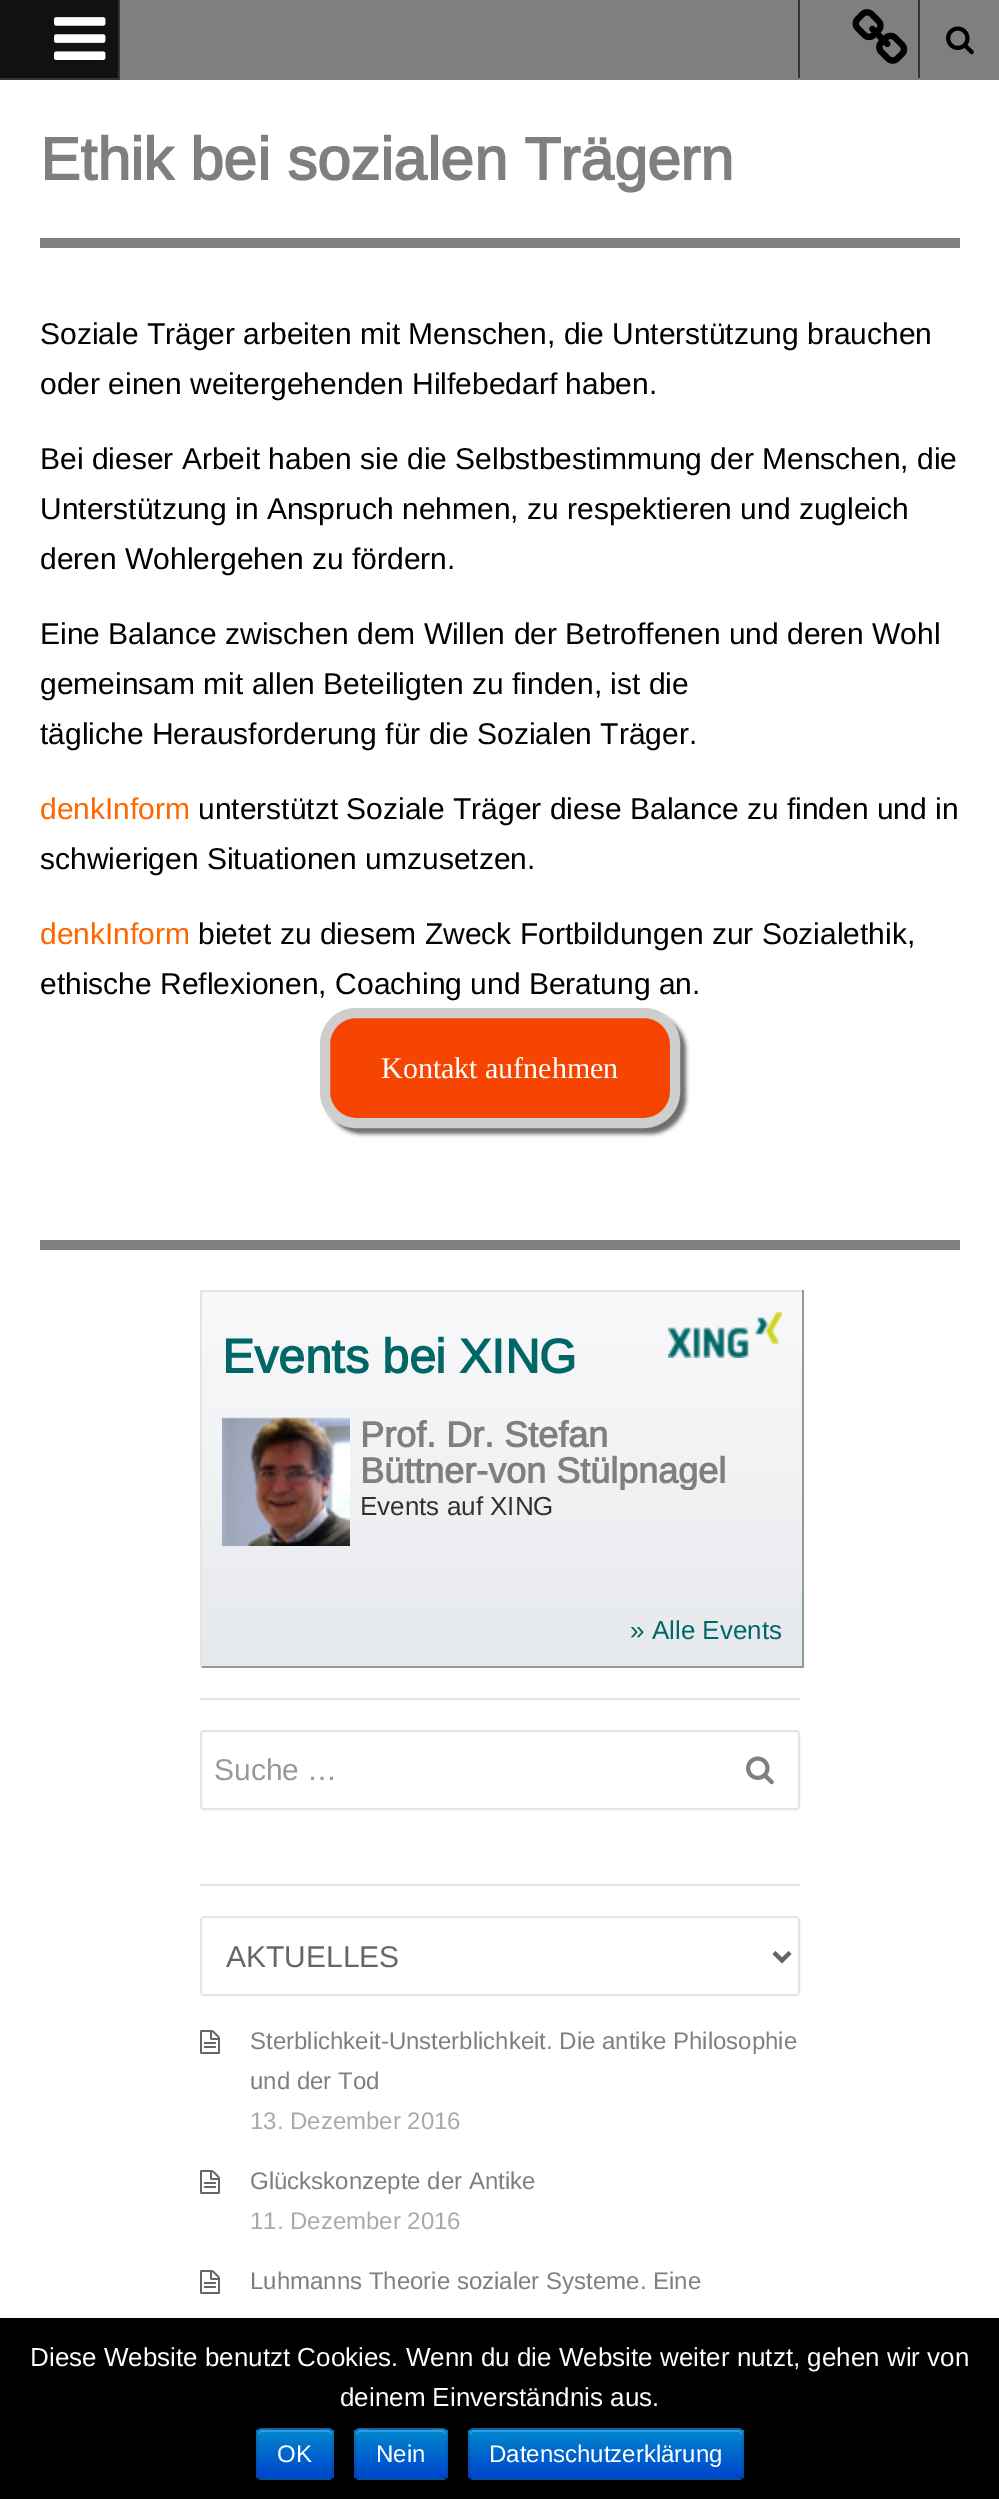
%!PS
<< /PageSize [999 2499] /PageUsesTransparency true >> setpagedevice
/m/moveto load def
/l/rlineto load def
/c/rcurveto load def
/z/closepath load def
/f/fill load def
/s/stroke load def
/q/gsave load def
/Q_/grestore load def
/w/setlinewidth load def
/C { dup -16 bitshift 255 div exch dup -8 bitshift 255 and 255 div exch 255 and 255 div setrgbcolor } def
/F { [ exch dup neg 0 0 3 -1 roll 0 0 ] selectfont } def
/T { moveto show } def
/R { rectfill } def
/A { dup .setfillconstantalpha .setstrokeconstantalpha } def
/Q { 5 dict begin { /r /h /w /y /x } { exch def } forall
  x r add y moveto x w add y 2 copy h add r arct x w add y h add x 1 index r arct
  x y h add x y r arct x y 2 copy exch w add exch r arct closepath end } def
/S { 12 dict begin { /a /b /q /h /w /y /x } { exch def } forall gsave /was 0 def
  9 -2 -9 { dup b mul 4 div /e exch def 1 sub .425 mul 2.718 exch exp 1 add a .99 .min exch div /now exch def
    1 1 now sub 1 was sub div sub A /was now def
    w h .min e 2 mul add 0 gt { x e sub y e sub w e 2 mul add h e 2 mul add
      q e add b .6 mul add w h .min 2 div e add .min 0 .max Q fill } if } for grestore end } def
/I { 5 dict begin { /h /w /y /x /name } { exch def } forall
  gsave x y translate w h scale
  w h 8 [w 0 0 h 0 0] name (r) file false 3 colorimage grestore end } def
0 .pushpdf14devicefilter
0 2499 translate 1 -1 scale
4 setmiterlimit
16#FFFFFF C
0 0 999 2499 R
16#7F7F7F C
120 0 879 80 R
16#333333 C
0 78 120 2 R
16#111111 C
0 0 118 78 R
16#333333 C
118 0 2 78 R
(1.rgb) 54 17 52 43 I
798 0 2 78 R
(2.rgb) 852 9 56 55 I
918 0 2 78 R
(3.rgb) 946 26 28 29 I
16#7F7F7F C
40 1240 920 10 R
40 238 920 10 R
/Arimo-Bold 60 F
(Ethik bei sozialen Trägern) 40 180 T
/Arimo-Regular 30 F
16#000000 C
(Soziale Träger arbeiten mit Menschen, die Unterstützung brauchen) 40 344 T
(oder einen weitergehenden Hilfebedarf haben.) 40 394 T
(Bei dieser Arbeit haben sie die Selbstbestimmung der Menschen, die) 40 469 T
(Unterstützung in Anspruch nehmen, zu respektieren und zugleich) 40 519 T
(deren Wohlergehen zu fördern.) 40 569 T
(Eine Balance zwischen dem Willen der Betroffenen und deren Wohl) 40 644 T
(gemeinsam mit allen Beteiligten zu finden, ist die) 40 694 T
(tägliche Herausforderung für die Sozialen Träger.) 40 744 T
16#FF6600 C
(denkInform) 40 819 T
16#000000 C
(unterstützt Soziale Träger diese Balance zu finden und in) 198 819 T
(schwierigen Situationen umzusetzen.) 40 869 T
16#FF6600 C
(denkInform) 40 944 T
16#000000 C
(bietet zu diesem Zweck Fortbildungen zur Sozialethik,) 198 944 T
(ethische Reflexionen, Coaching und Beratung an.) 40 994 T
16#6B6B6B C
326 1014 360 120 36 2 1 S
16#F64503 C
325 1013 350 110 31 Q q f Q_
16#CECECE C
10 w
s
/LiberationSerif-Regular 30 F
16#FFFFFF C
(Kontakt aufnehmen) 381 1078 T
(4.rgb) 202 1292 600 374 I
16#E4E4E4 C
200 1290 604 2 R
16#8B9BA1 C
802 1290 2 378 R
200 1666 604 2 R
16#E4E4E4 C
200 1290 2 378 R
/Arimo-Bold 48 F
16#006666 C
(Events bei XING) 222 1373 T
(5.rgb) 668 1312 114 46 I
(6.rgb) 222 1417 128 129 I
/Arimo-Bold 36 F
16#7F7F7F C
(Prof. Dr. Stefan) 360 1447 T
q
350 1418 432 72 rectclip
(Büttner-von Stülpnagel) 360 1483 T
Q_
/LiberationSans-Regular 26 F
16#303030 C
(Events auf XING) 360 1515 T
16#006666 C
(» Alle Events) 630 1639 T
16#E5E5E5 C
200 1698 600 2 R
2 w
201 1731 598 78 3 Q s
/LiberationSans-Regular 30 F
16#999999 C
(Suche …) 214 1780 T
(7.rgb) 746 1756 28 29 I
16#E5E5E5 C
200 1884 600 2 R
201 1917 598 78 3 Q s
16#666666 C
4 w
774 1952.5 m 8 8 l 8 -8 l s
(AKTUELLES) 226 1967 T
(8.rgb) 200 2030 20 24 I
/Arimo-Regular 24 F
16#7F7F7F C
(Sterblichkeit-Unsterblichkeit. Die antike Philosophie) 250 2049 T
(und der Tod) 250 2089 T
16#AAAAAA C
(13. Dezember 2016) 250 2129 T
(8.rgb) 200 2170 20 24 I
16#7F7F7F C
(Glückskonzepte der Antike) 250 2189 T
16#AAAAAA C
(11. Dezember 2016) 250 2229 T
(8.rgb) 200 2270 20 24 I
16#7F7F7F C
(Luhmanns Theorie sozialer Systeme. Eine) 250 2289 T
16#000000 C
0 2318 999 181 R
/Arimo-Regular 26 F
16#FFFFFF C
(Diese Website benutzt Cookies. Wenn du die Website weiter nutzt, gehen wir von) 30 2366 T
(deinem Einverständnis aus.) 340 2406 T
16#006DCC C
256 2428 78 52 6 Q f
q
256 2428 78 52 6 Q clip newpath
q 256 2430 m 78 0 l 0 48 l -78 0 l z clip newpath
<< /ShadingType 2 /ColorSpace /DeviceRGB /Coords [295 2430 295 2478] /Extend [true true] /Function << /FunctionType 2 /Domain [0 1] /C0 [0 .533 .8] /C1 [0 .267 .8] /N 1 >> >> shfill Q_
Q_
0.2 A
16#FFFFFF C
262 2432 m 66 0 l 2 0 4 2 4 4 c 0 -9 -7 -6 -15 -6 c -44 0 l -8 0 -15 -3 -15 6 c 0 -2 2 -4 4 -4 c z f
0.25 A
16#000000 C
2 w
331.5 2477.5 m -1 1 -2 1.5 -3.5 1.5 c -66 0 l -1.5 0 -2.5 -.5 -3.5 -1.5 c s
0.1 A
258.5 2477.5 m -1 -1 -1.5 -2 -1.5 -3.5 c 0 -40 l 0 -1.5 .5 -2.5 1.5 -3.5 c 1 -1 2 -1.5 3.5 -1.5 c 66 0 l 1.5 0 2.5 .5 3.5 1.5 c 1 1 1.5 2 1.5 3.5 c 0 40 l 0 1.5 -.5 2.5 -1.5 3.5 c s
/LiberationSans-Regular 24 F
1 A
16#FFFFFF C
(OK) 277 2462 T
16#006DCC C
354 2428 94 52 6 Q f
q
354 2428 94 52 6 Q clip newpath
q 354 2430 m 94 0 l 0 48 l -94 0 l z clip newpath
<< /ShadingType 2 /ColorSpace /DeviceRGB /Coords [401 2430 401 2478] /Extend [true true] /Function << /FunctionType 2 /Domain [0 1] /C0 [0 .533 .8] /C1 [0 .267 .8] /N 1 >> >> shfill Q_
Q_
0.2 A
16#FFFFFF C
360 2432 m 82 0 l 2 0 4 2 4 4 c 0 -10 -10 -6 -18 -6 c -54 0 l -8 0 -18 -4 -18 6 c 0 -2 2 -4 4 -4 c z f
0.25 A
16#000000 C
445.5 2477.5 m -3 1.5 l -83 0 l -3 -1.5 l s
0.1 A
356.5 2477.5 m -1 -1 -1.5 -2 -1.5 -3.5 c 0 -40 l 0 -1.5 .5 -2.5 1.5 -3.5 c 1 -1 2 -1.5 3.5 -1.5 c 82 0 l 1.5 0 2.5 .5 3.5 1.5 c 1 1 1.5 2 1.5 3.5 c 0 40 l 0 1.5 -.5 2.5 -1.5 3.5 c s
1 A
16#FFFFFF C
(Nein) 376 2462 T
16#006DCC C
468 2428 276 52 6 Q f
q
468 2428 276 52 6 Q clip newpath
q 468 2430 m 276 0 l 0 48 l -276 0 l z clip newpath
<< /ShadingType 2 /ColorSpace /DeviceRGB /Coords [606 2430 606 2478] /Extend [true true] /Function << /FunctionType 2 /Domain [0 1] /C0 [0 .533 .8] /C1 [0 .267 .8] /N 1 >> >> shfill Q_
Q_
0.2 A
16#FFFFFF C
474 2432 m 264 0 l 2 0 4 2 4 4 c 0 -3 0 -6 -4 -6 c -264 0 l -4 0 -4 3 -4 6 c 0 -2 2 -4 4 -4 c z f
0.25 A
16#000000 C
741.5 2477.5 m -3 1.5 l -264.5 0 l -1.5 0 -2.5 -.5 -3.5 -1.5 c s
0.1 A
470.5 2477.5 m -1 -1 -1.5 -2 -1.5 -3.5 c 0 -40 l 0 -1.5 .5 -2.5 1.5 -3.5 c 1 -1 2 -1.5 3.5 -1.5 c 264 0 l 1.5 0 2.5 .5 3.5 1.5 c 1 1 1.5 2 1.5 3.5 c 0 40 l 0 1.5 -.5 2.5 -1.5 3.5 c s
1 A
16#FFFFFF C
(Datenschutzerklärung) 489 2462 T
.poppdf14devicefilter showpage
